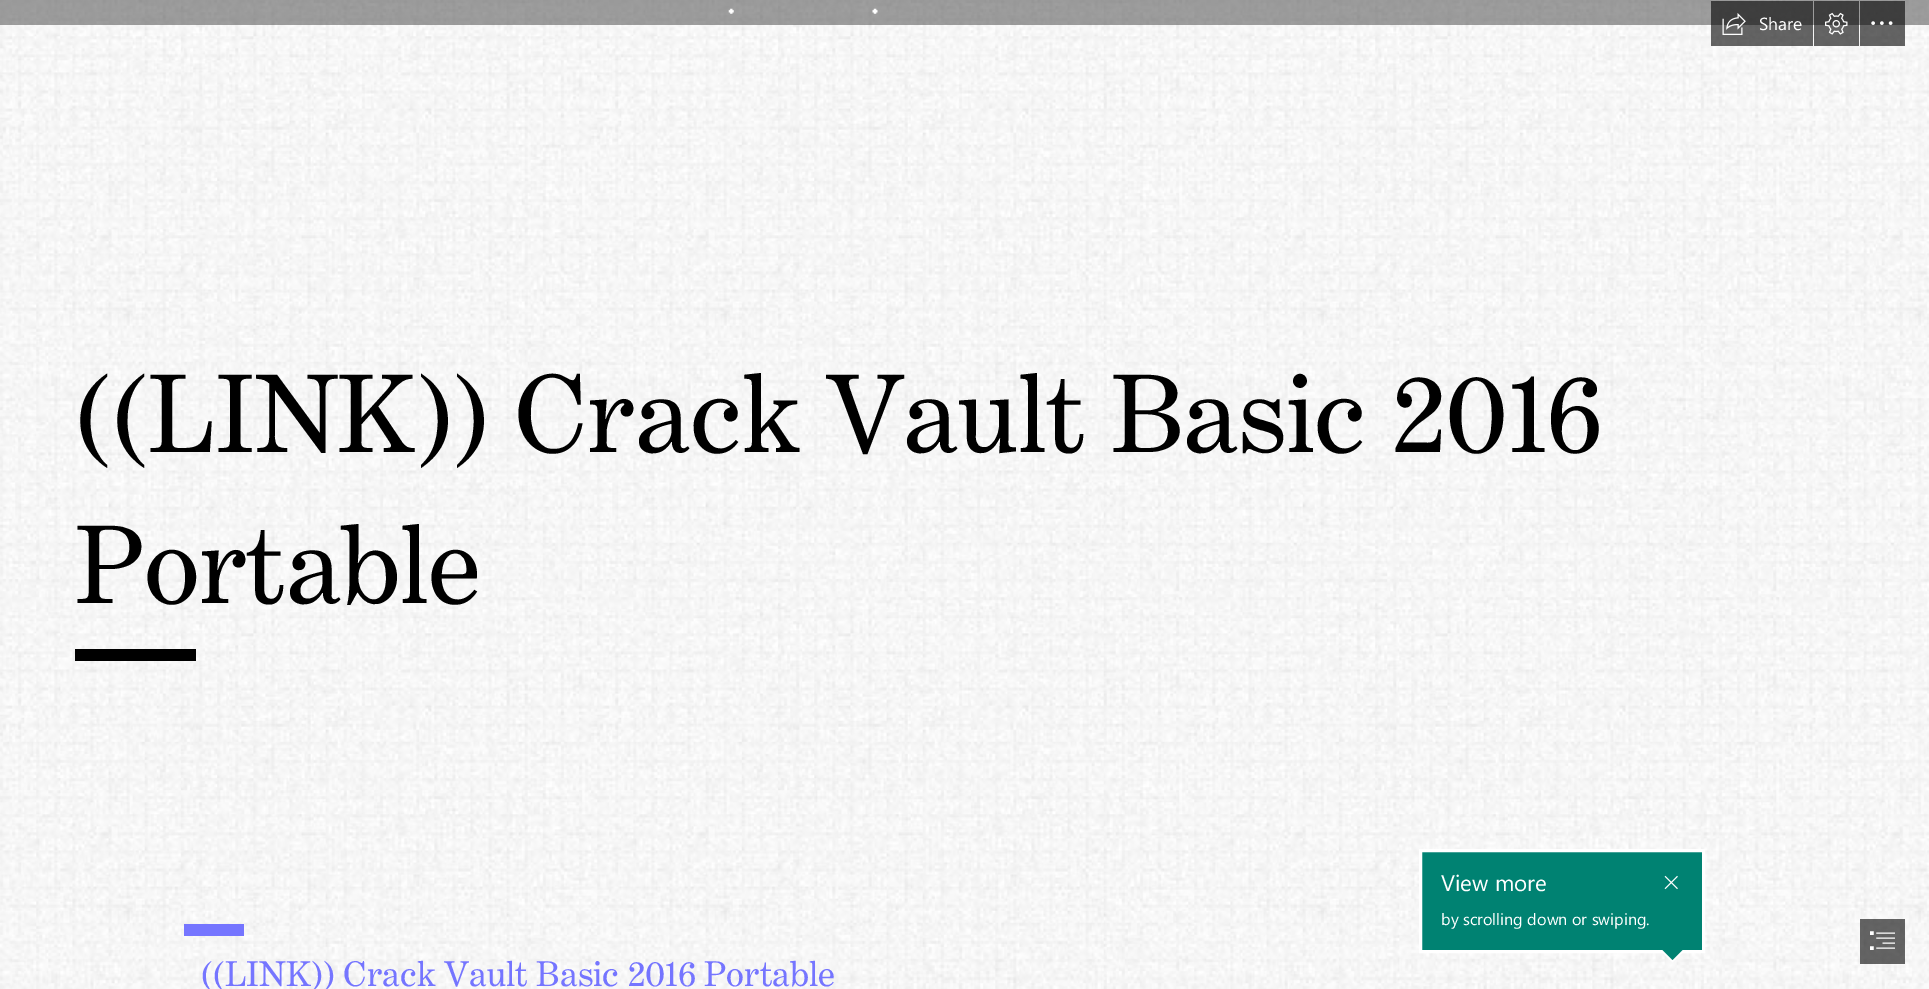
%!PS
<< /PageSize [1929 989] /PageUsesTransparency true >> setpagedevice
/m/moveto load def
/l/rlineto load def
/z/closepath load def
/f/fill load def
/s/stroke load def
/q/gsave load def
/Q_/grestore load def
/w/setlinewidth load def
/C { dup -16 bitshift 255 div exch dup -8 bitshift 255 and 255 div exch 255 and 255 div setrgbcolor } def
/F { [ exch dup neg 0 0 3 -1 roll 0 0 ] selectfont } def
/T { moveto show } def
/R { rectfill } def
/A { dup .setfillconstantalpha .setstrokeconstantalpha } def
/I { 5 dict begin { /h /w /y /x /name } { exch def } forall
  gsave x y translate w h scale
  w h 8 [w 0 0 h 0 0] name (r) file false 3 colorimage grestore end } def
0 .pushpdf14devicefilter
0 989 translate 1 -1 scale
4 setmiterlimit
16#EAEAEA C
0 0 1929 989 R
(5.rgb) 0 0 1929 989 I
0.5 A
16#404040 C
0 0 1929 25 R
0.6 A
16#000000 C
1711 1 102 45 R
1 A
(1.rgb) 1722 13 24 22 I
/SegoeUI-Regular 17.5 F
16#FFFFFF C
(Share) 1759 30 T
0.6 A
16#000000 C
1814 1 45 45 R
1 A
(2.rgb) 1825 12 23 23 I
0.6 A
1860 1 45 45 R
1 A
(3.rgb) 1871 21 22 4 I
(4.rgb) 728 8 150 6 I
/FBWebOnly-Regular 113.1 F
75 452 m -.6 0 (\(\(LINK\)\) Crack Vault Basic 2016) ashow
75 603 m -.6 0 (Portable) ashow
75 649 121 12 R
16#7575FF C
184 924 60 12 R
/FBWebOnly-Regular 36.2 F
(\(\(LINK\)\) Crack Vault Basic 2016 Portable) 201 986 T
16#008272 C
1420.5 850.5 m 283 0 l 0 101 l -283 0 l z q f Q_
16#FFFFFF C
3 w
s
/SegoeUI-Regular 22.5 F
(View more) 1441 891 T
/SegoeUI-Regular 16.25 F
(by scrolling down or swiping.) 1441 925 T
(6.rgb) 1664 875 14 15 I
1660 950 m 25 0 l -12.5 12.5 l z f
16#008272 C
1662.5 950 m 20 0 l -10 10 l z f
0.6 A
16#000000 C
1860 919 45 45 R
1 A
(7.rgb) 1870 931 25 19 I
.poppdf14devicefilter showpage
